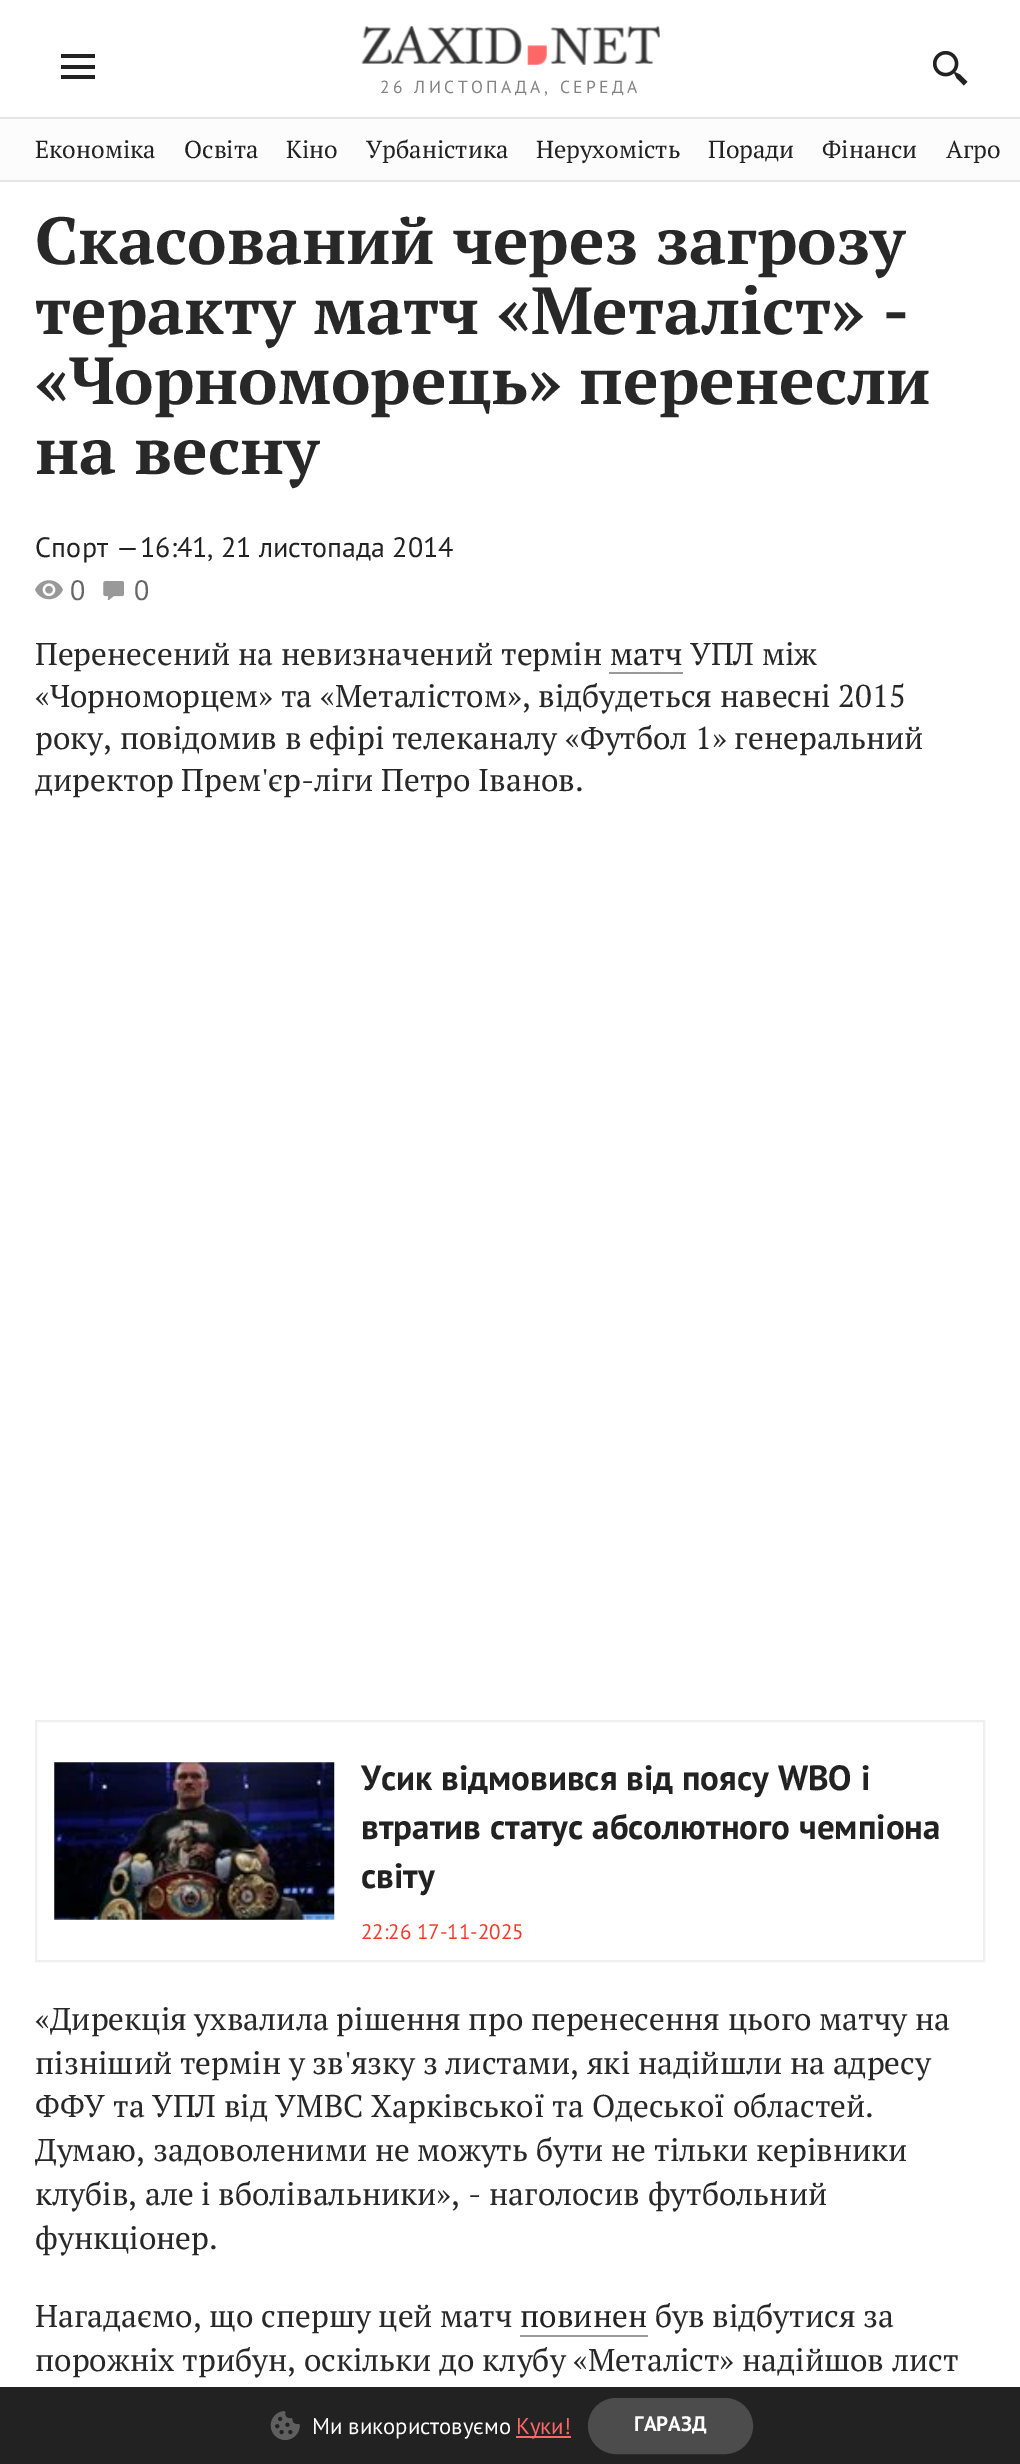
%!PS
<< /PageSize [1020 2464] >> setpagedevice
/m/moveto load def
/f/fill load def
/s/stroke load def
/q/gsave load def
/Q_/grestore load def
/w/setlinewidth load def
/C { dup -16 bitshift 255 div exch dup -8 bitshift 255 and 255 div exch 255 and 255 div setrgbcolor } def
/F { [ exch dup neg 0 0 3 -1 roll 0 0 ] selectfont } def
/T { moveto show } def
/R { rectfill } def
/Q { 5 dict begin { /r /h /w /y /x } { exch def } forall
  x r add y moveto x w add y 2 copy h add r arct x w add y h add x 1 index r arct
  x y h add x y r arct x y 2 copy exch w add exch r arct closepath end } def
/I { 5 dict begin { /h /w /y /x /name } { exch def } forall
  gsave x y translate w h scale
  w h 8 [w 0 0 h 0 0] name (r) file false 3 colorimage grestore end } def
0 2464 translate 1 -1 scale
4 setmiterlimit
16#FFFFFF C
0 0 1020 2464 R
(1.rgb) 933 51 35 35 I
16#222222 C
61 54 34 4 R
61 75 34 4 R
61 65 34 4 R
(2.rgb) 361 26 299 39 I
/PTSans-Regular 17.5 F
16#838383 C
380 93 m 3.5 0 (26 ЛИСТОПАДА, СЕРЕДА) ashow
16#FCFCFC C
0 119 1020 61 R
16#E5E5E5 C
0 117 1020 2 R
0 180 1020 2 R
/PTSerif-Regular 24.5 F
16#222222 C
(Економіка) 35 158 T
(Освіта) 184 158 T
(Кіно) 286 158 T
(Урбаністика) 366 158 T
(Нерухомість) 536 158 T
(Поради) 708 158 T
(Фінанси) 822 158 T
(Агро) 946 158 T
/PTSerif-Bold 66.5 F
16#282828 C
(Скасований через загрозу) 35 264 T
(теракту матч «Металіст» -) 35 334 T
(«Чорноморець» перенесли) 35 404 T
(на весну) 35 474 T
/PTSans-Regular 28 F
16#222222 C
35 557 m .25 0 (Спорт —) ashow
(16:41, 21 листопада 2014) 140 557 T
(3.rgb) 35 580 28 20 I
16#666666 C
(0) 70 600 T
(4.rgb) 103 581 21 19 I
(0) 134 600 T
/PTSerif-Regular 31.5 F
16#282828 C
(Перенесений на невизначений термін) 35 665 T
16#222222 C
(матч) 610 665 T
16#999999 C
609 672 74 2 R
16#282828 C
(УПЛ між) 690 665 T
(«Чорноморцем» та «Металістом», відбудеться навесні 2015) 35 707 T
(року, повідомив в ефірі телеканалу «Футбол 1» генеральний) 35 749 T
(директор Прем'єр-ліги Петро Іванов.) 35 791 T
16#EFEFEF C
2 w
36 1721 948 240 rectstroke
(5.rgb) 54 1762 281 158 I
/PTSans-Bold 35 F
16#222222 C
(Усик відмовився від поясу WBO і) 361 1790 T
(втратив статус абсолютного чемпіона) 361 1839 T
(світу) 361 1888 T
/PTSans-Regular 21 F
16#F73929 C
(22:26 17-11-2025) 361 1939 T
/PTSerif-Regular 31.5 F
16#282828 C
(«Дирекція ухвалила рішення про перенесення цього матчу на) 35 2030 T
(пізніший термін у зв'язку з листами, які надійшли на адресу) 35 2074 T
(ФФУ та УПЛ від УМВС Харківської та Одеської областей.) 35 2117 T
(Думаю, задоволеними не можуть бути не тільки керівники) 35 2161 T
(клубів, але і вболівальники», - наголосив футбольний) 35 2205 T
(функціонер.) 35 2249 T
(Нагадаємо, що спершу цей матч) 35 2327 T
16#222222 C
(повинен) 520 2327 T
16#999999 C
520 2335 128 2 R
16#282828 C
(був відбутися за) 655 2327 T
(порожніх трибун, оскільки до клубу «Металіст» надійшов лист) 35 2371 T
16#222222 C
0 2387 1020 77 R
(6.rgb) 270 2411 30 30 I
/PTSans-Regular 22.75 F
16#FFFFFF C
(Ми використовуємо) 312 2434 T
16#FF6666 C
516 2436 55 2 R
(Куки!) 516 2434 T
16#4C4C4C C
589 2399 163 54 27 Q q f Q_
s
/PTSans-Bold 21 F
16#FFFFFF C
(ГАРАЗД) 634 2431 T
showpage
